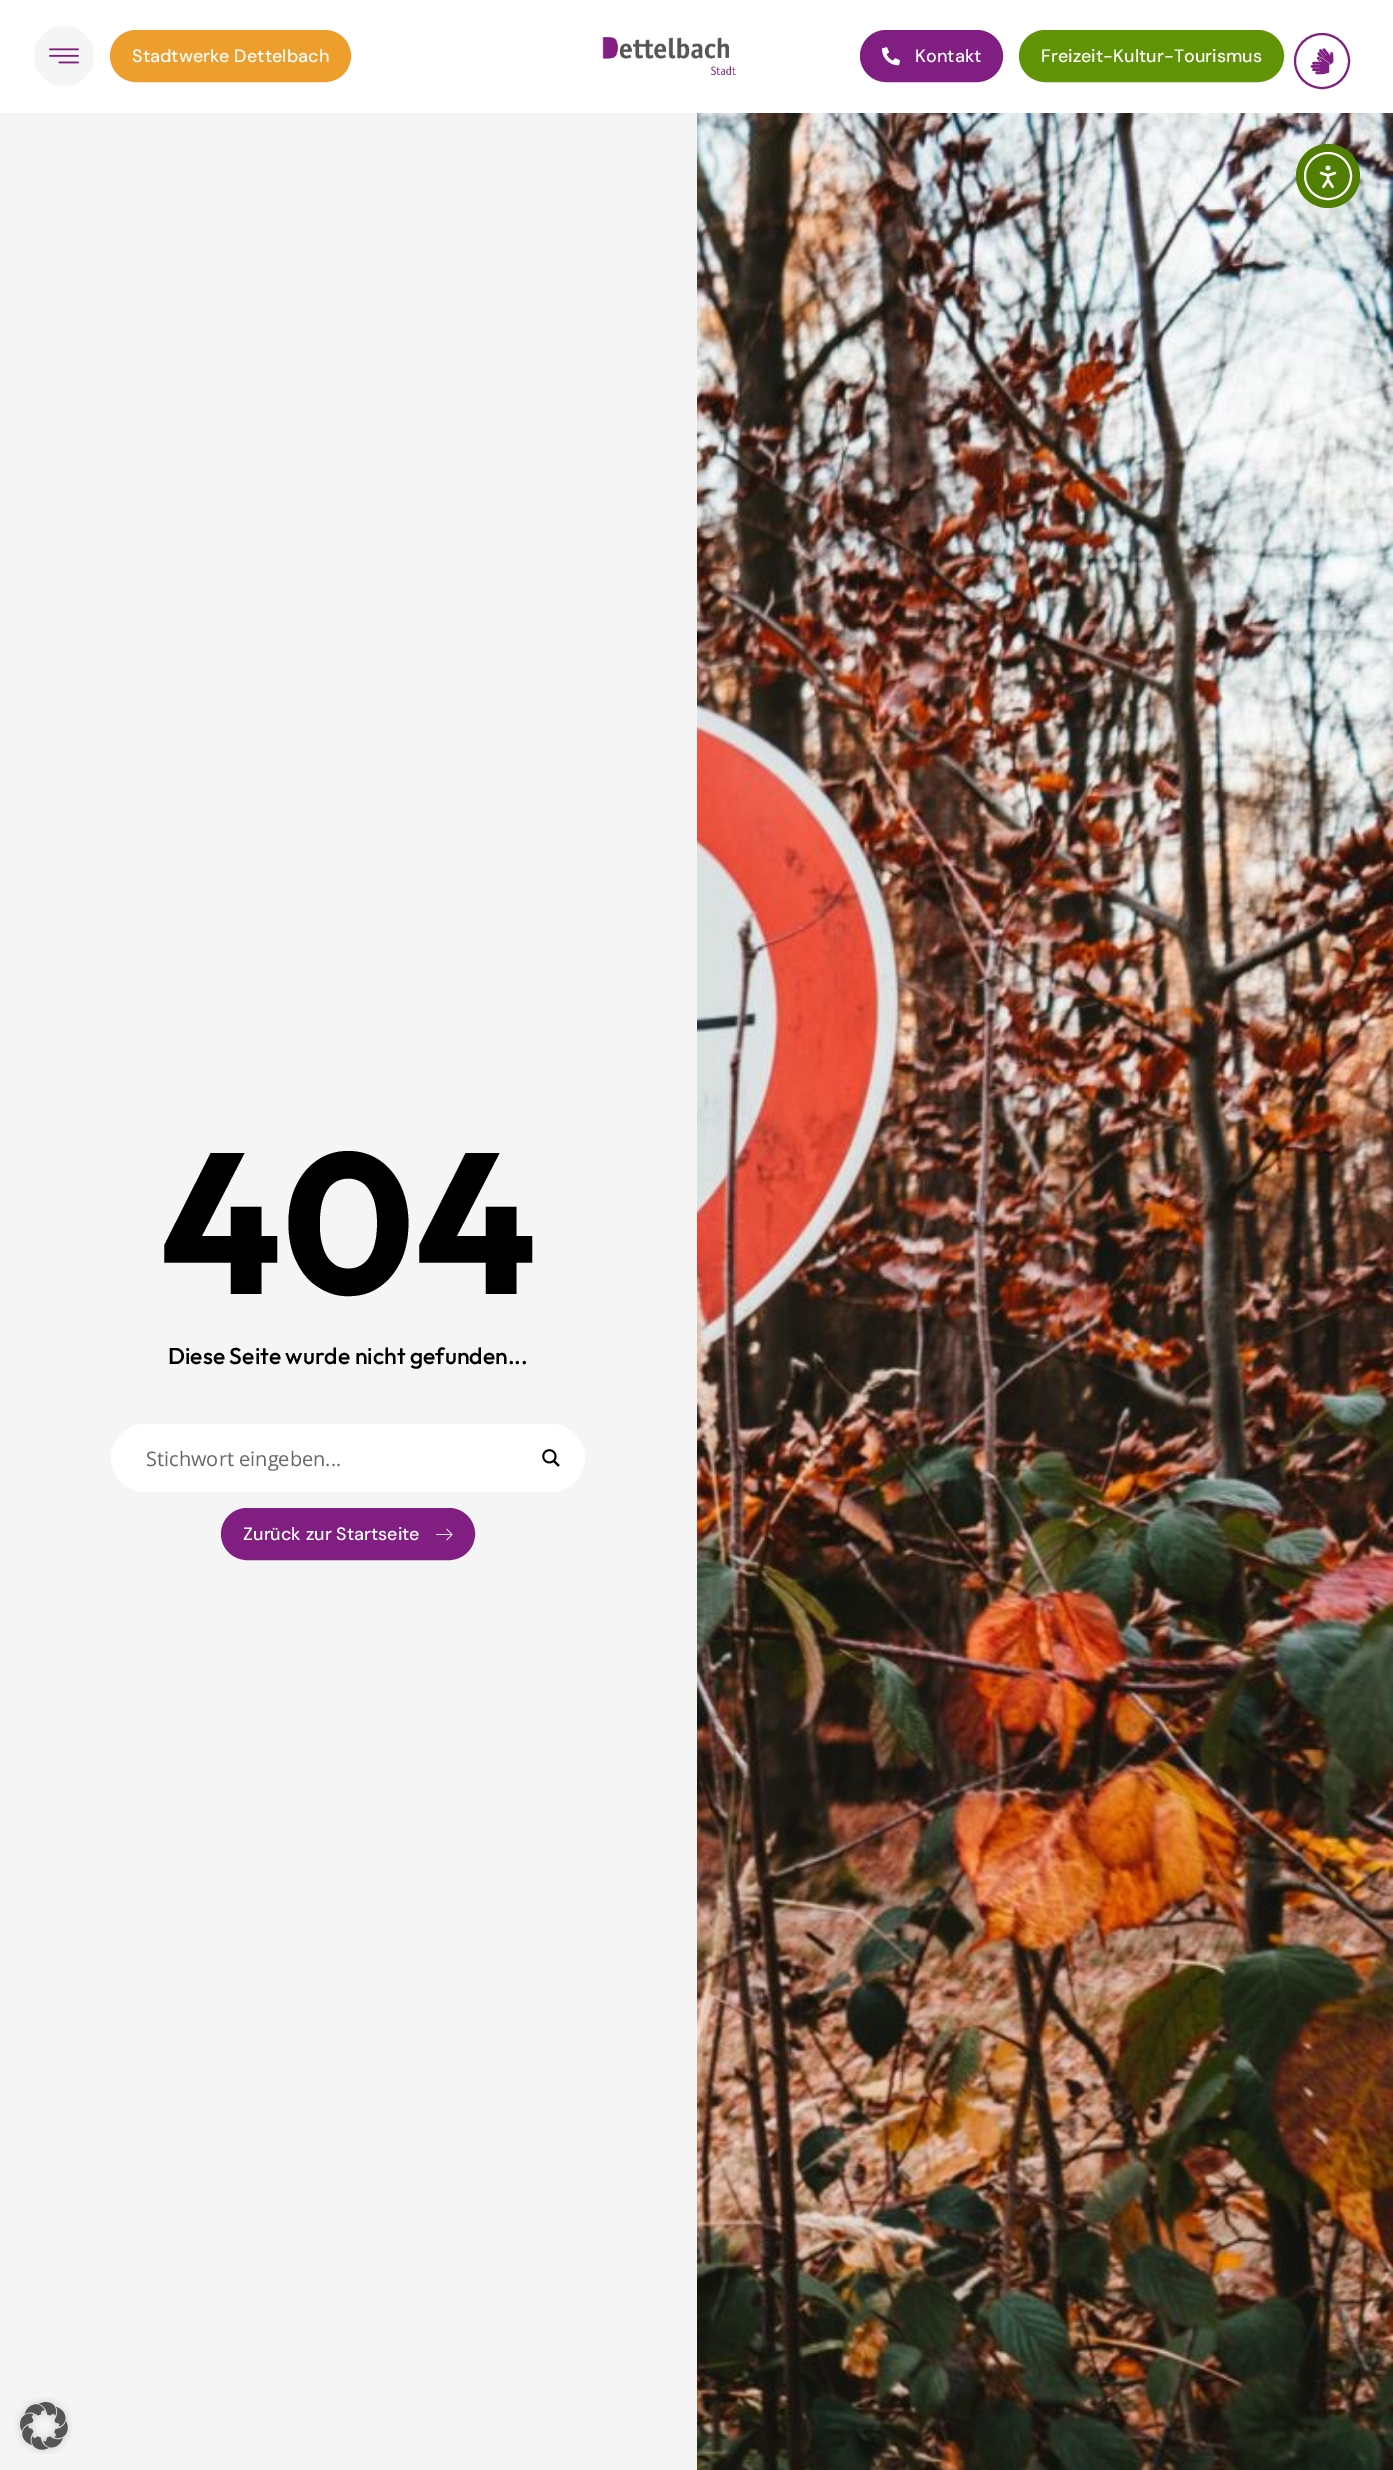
%!PS
<< /PageSize [1393 2470] >> setpagedevice
/f/fill load def
/s/stroke load def
/q/gsave load def
/Q_/grestore load def
/w/setlinewidth load def
/C { dup -16 bitshift 255 div exch dup -8 bitshift 255 and 255 div exch 255 and 255 div setrgbcolor } def
/F { [ exch dup neg 0 0 3 -1 roll 0 0 ] selectfont } def
/T { moveto show } def
/R { rectfill } def
/O { newpath 0 360 arc closepath } def
/Q { 5 dict begin { /r /h /w /y /x } { exch def } forall
  x r add y moveto x w add y 2 copy h add r arct x w add y h add x 1 index r arct
  x y h add x y r arct x y 2 copy exch w add exch r arct closepath end } def
/I { 5 dict begin { /h /w /y /x /name } { exch def } forall
  gsave x y translate w h scale
  w h 8 [w 0 0 h 0 0] name (r) file false 3 colorimage grestore end } def
0 2470 translate 1 -1 scale
4 setmiterlimit
16#FFFFFF C
0 0 1393 2470 R
16#F5F5F5 C
64 56 30 O f
(1.rgb) 49 48 30 16 I
16#ED9E2C C
111 31 239 50 25 Q q f Q_
2 w
s
/DMSans-Medium 18 F
16#FFFFFF C
(Stadtwerke Dettelbach) 132 62 T
(2.rgb) 602 37 134 39 I
16#811E81 C
861 31 141 50 25 Q q f Q_
s
(3.rgb) 882 47 18 19 I
16#FFFFFF C
(Kontakt) 915 62 T
16#609406 C
1020 31 263 50 25 Q q f Q_
s
16#FFFFFF C
(Freizeit-Kultur-Tourismus) 1041 62 T
16#811E81 C
1322 61 27 O s
(4.rgb) 1310 48 24 27 I
(8.rgb) 697 113 696 2357 I
16#517F03 C
1328 176 32 O f
16#FFFFFF C
1328 176 23 O s
(5.rgb) 1319 165 18 24 I
16#F5F5F5 C
0 113 697 2357 R
/Outfit-Bold 200 F
16#000000 C
(404) 160 1294 T
/Outfit-Medium 23 F
(Diese Seite wurde nicht gefunden...) 168 1364 T
16#FFFFFF C
111 1424 474 68 34 Q f
/OpenSans-Regular 20 F
16#666666 C
(Stichwort eingeben...) 146 1466 T
(6.rgb) 542 1449 18 18 I
16#811E81 C
222 1509 252 50 25 Q q f Q_
s
/DMSans-Medium 18 F
16#FFFFFF C
(Zurück zur Startseite) 243 1540 T
(7.rgb) 435 1528 18 13 I
(9.rgb) 15 2397 57 57 I
showpage
